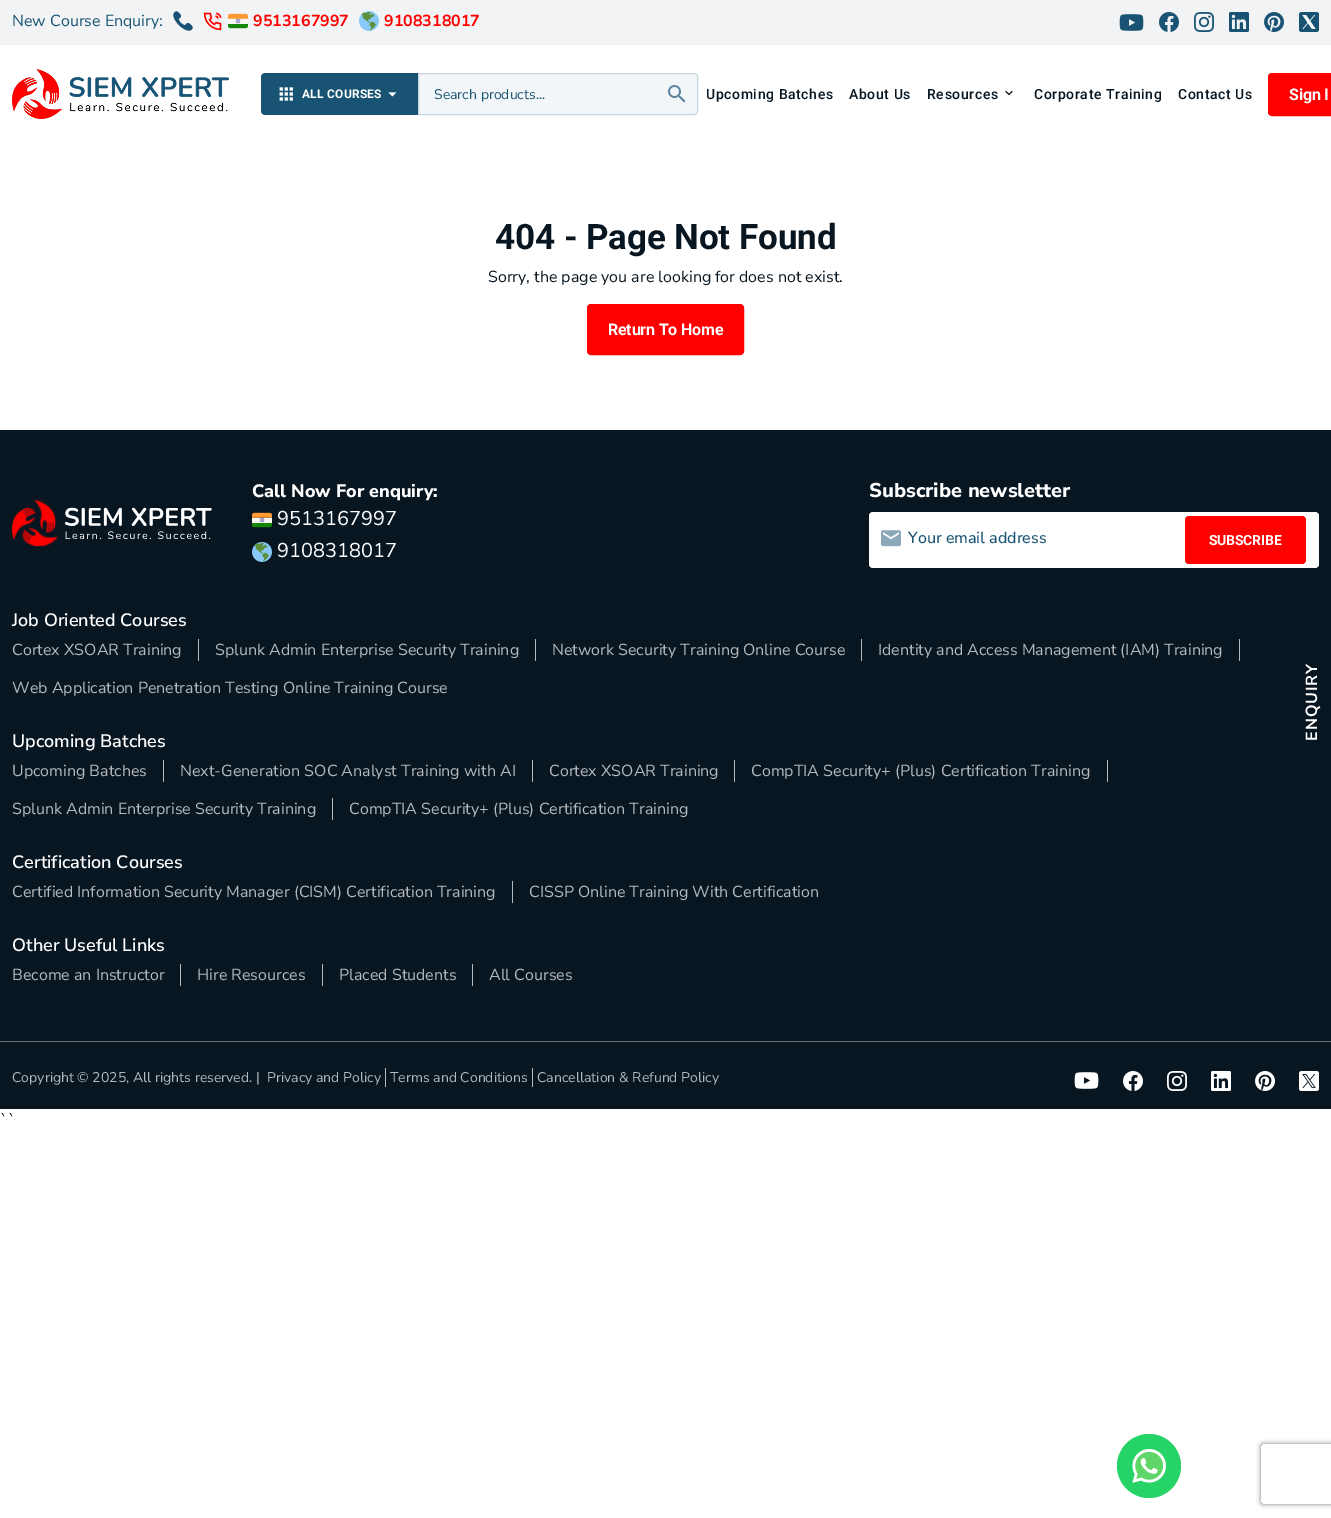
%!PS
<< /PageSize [1331 1518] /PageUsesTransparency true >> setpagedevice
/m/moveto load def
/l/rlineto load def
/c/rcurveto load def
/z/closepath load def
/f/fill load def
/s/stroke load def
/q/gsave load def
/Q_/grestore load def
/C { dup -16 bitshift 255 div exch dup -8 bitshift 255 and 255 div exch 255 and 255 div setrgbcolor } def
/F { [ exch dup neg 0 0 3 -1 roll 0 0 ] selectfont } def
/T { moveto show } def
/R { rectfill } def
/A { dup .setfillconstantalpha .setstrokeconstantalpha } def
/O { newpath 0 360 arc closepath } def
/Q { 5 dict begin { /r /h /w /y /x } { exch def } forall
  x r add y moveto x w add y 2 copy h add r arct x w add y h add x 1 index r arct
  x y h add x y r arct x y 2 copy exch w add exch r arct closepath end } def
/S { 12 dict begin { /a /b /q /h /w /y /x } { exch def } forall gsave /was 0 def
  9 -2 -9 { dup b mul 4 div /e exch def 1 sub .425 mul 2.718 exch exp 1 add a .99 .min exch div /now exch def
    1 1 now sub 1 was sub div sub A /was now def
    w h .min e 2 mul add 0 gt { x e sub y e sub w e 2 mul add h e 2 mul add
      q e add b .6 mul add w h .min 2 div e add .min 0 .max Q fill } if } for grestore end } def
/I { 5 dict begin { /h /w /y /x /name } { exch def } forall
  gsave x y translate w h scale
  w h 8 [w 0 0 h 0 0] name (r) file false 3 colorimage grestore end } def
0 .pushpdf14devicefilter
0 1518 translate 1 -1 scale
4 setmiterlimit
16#FFFFFF C
0 0 1331 1518 R
16#F2F3F4 C
0 0 1331 45 R
/NunitoSans-Regular 16 F
16#185373 C
(New Course Enquiry:) 12 26 T
(1.rgb) 173 11 20 20 I
(2.rgb) 203 12 19 19 I
(3.rgb) 228 13 20 16 I
/NunitoSans-Bold 16 F
16#FE0000 C
(9513167997) 253 26 T
(4.rgb) 359 11 20 20 I
(9108318017) 384 26 T
(5.rgb) 1119 14 25 17 I
(6.rgb) 1159 12 20 20 I
(7.rgb) 1194 12 20 20 I
(8.rgb) 1229 12 20 20 I
(9.rgb) 1264 12 20 20 I
(10.rgb) 1299 12 20 20 I
(11.rgb) 12 69 217 50 I
16#185373 C
265 73 m 153 0 l 0 42 l -153 0 l -2 0 -4 -2 -4 -4 c 0 -34 l 0 -2 2 -4 4 -4 c z f
(12.rgb) 279 87 14 14 I
/Roboto-Bold 12 F
16#FFFFFF C
302 98 m .25 0 (ALL COURSES) ashow
(13.rgb) 388 92 9 5 I
16#F3F6F8 C
418 73 m 276 0 l 2 0 4 2 4 4 c 0 34 l 0 2 -2 4 -4 4 c -276 0 l z f
0.2 A
16#185373 C
418.5 73.5 m 275.5 0 l 2 0 3.5 1.5 3.5 3.5 c 0 34 l 0 2 -1.5 3.5 -3.5 3.5 c -275.5 0 l z s
/NunitoSans-Regular 14 F
1 A
(Search products...) 434 99 T
(14.rgb) 668 85 18 18 I
/Roboto-Medium 14 F
16#081621 C
706 99 m .6 0 (Upcoming Batches) ashow
849 99 m .6 0 (About Us) ashow
927 99 m .6 0 (Resources) ashow
(15.rgb) 1005 91 8 4 I
1034 99 m .6 0 (Corporate Training) ashow
1178 99 m .6 0 (Contact Us) ashow
16#FE0000 C
1268.5 73.5 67 42 3.5 Q q f Q_
s
/Roboto-Bold 16 F
16#FFFFFF C
1289 100 m -.2 0 (Sign I) ashow
/Roboto-Bold 35 F
16#081621 C
495 249 m -.1 0 (404 - Page Not Found) ashow
/NunitoSans-Regular 16 F
(Sorry, the page you are looking for does not exist.) 488 282 T
16#FE0000 C
587.5 304.5 156 50 3.5 Q q f Q_
s
/Roboto-Bold 16 F
16#FFFFFF C
608 335 m -.2 0 (Return To Home) ashow
16#081621 C
0 430 1331 679 R
(16.rgb) 12 500 200 47 I
/NunitoSans-ExtraBold 18 F
16#FFFFFF C
(Call Now For enquiry:) 252 497 T
(17.rgb) 252 512 20 16 I
/NunitoSans-Regular 20 F
(9513167997) 277 525 T
(18.rgb) 252 542 20 20 I
(9108318017) 277 557 T
/NunitoSans-ExtraBold 20 F
(Subscribe newsletter) 869 497 T
869 512 450 56 4 Q f
(19.rgb) 881 530 20 17 I
/NunitoSans-Medium 16 F
16#185373 C
(Your email address) 908 543 T
16#FE0000 C
1185 516 121 48 4 Q f
/Roboto-Bold 14 F
16#FFFFFF C
1209 545 m -.25 0 (SUBSCRIBE) ashow
/NunitoSans-SemiBold 18 F
(Job Oriented Courses) 12 626 T
16#B5B9BC C
198 639 1 22 R
/NunitoSans-Regular 16 F
(Cortex XSOAR Training) 12 655 T
535 639 1 22 R
(Splunk Admin Enterprise Security Training) 215 655 T
861 639 1 22 R
(Network Security Training Online Course) 552 655 T
1239 639 1 22 R
(Identity and Access Management \(IAM\) Training) 878 655 T
(Web Application Penetration Testing Online Training Course) 12 693 T
/NunitoSans-SemiBold 18 F
16#FFFFFF C
(Upcoming Batches) 12 747 T
16#B5B9BC C
163 760 1 22 R
/NunitoSans-Regular 16 F
(Upcoming Batches) 12 776 T
532 760 1 22 R
(Next-Generation SOC Analyst Training with AI) 180 776 T
734 760 1 22 R
(Cortex XSOAR Training) 549 776 T
1107 760 1 22 R
(CompTIA Security+ \(Plus\) Certification Training) 751 776 T
332 798 1 22 R
(Splunk Admin Enterprise Security Training) 12 814 T
(CompTIA Security+ \(Plus\) Certification Training) 349 814 T
/NunitoSans-SemiBold 18 F
16#FFFFFF C
(Certification Courses) 12 868 T
16#B5B9BC C
512 881 1 22 R
/NunitoSans-Regular 16 F
(Certified Information Security Manager \(CISM\) Certification Training) 12 897 T
(CISSP Online Training With Certification) 529 897 T
/NunitoSans-SemiBold 18 F
16#FFFFFF C
(Other Useful Links) 12 951 T
16#B5B9BC C
180 964 1 22 R
/NunitoSans-Regular 16 F
(Become an Instructor) 12 980 T
322 964 1 22 R
(Hire Resources) 197 980 T
472 964 1 22 R
(Placed Students) 339 980 T
(All Courses) 489 980 T
16#6C757D C
0 1041 1331 1 R
/NunitoSans-Regular 14 F
16#B5B9BC C
(Copyright © 2025, All rights reserved. |) 12 1082 T
(Privacy and Policy) 267 1082 T
385 1068 1 19 R
(Terms and Conditions) 390 1082 T
532 1068 1 19 R
(Cancellation & Refund Policy) 537 1082 T
(20.rgb) 1074 1072 25 17 I
(21.rgb) 1123 1071 20 20 I
(22.rgb) 1167 1071 20 20 I
(23.rgb) 1211 1071 20 20 I
(24.rgb) 1255 1071 20 20 I
(25.rgb) 1299 1071 20 20 I
/NunitoSans-Bold 16 F
16#FFFFFF C
q 1317 741 translate -90 rotate 0 0 m 1 0 (ENQUIRY) ashow Q_
/NunitoSans-Regular 16 F
16#081621 C
(``) 0 1125 T
16#25D366 C
1149 1466 32 O f
(26.rgb) 1132 1449 34 34 I
q
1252 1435 m 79 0 l 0 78 l -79 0 l z 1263 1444 m 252 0 l 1 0 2 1 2 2 c 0 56 l 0 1 -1 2 -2 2 c -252 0 l -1 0 -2 -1 -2 -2 c 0 -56 l 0 -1 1 -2 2 -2 c z eoclip newpath
16#808080 C
1261 1444 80 60 2 2.5 1 S
Q_
.poppdf14devicefilter showpage
